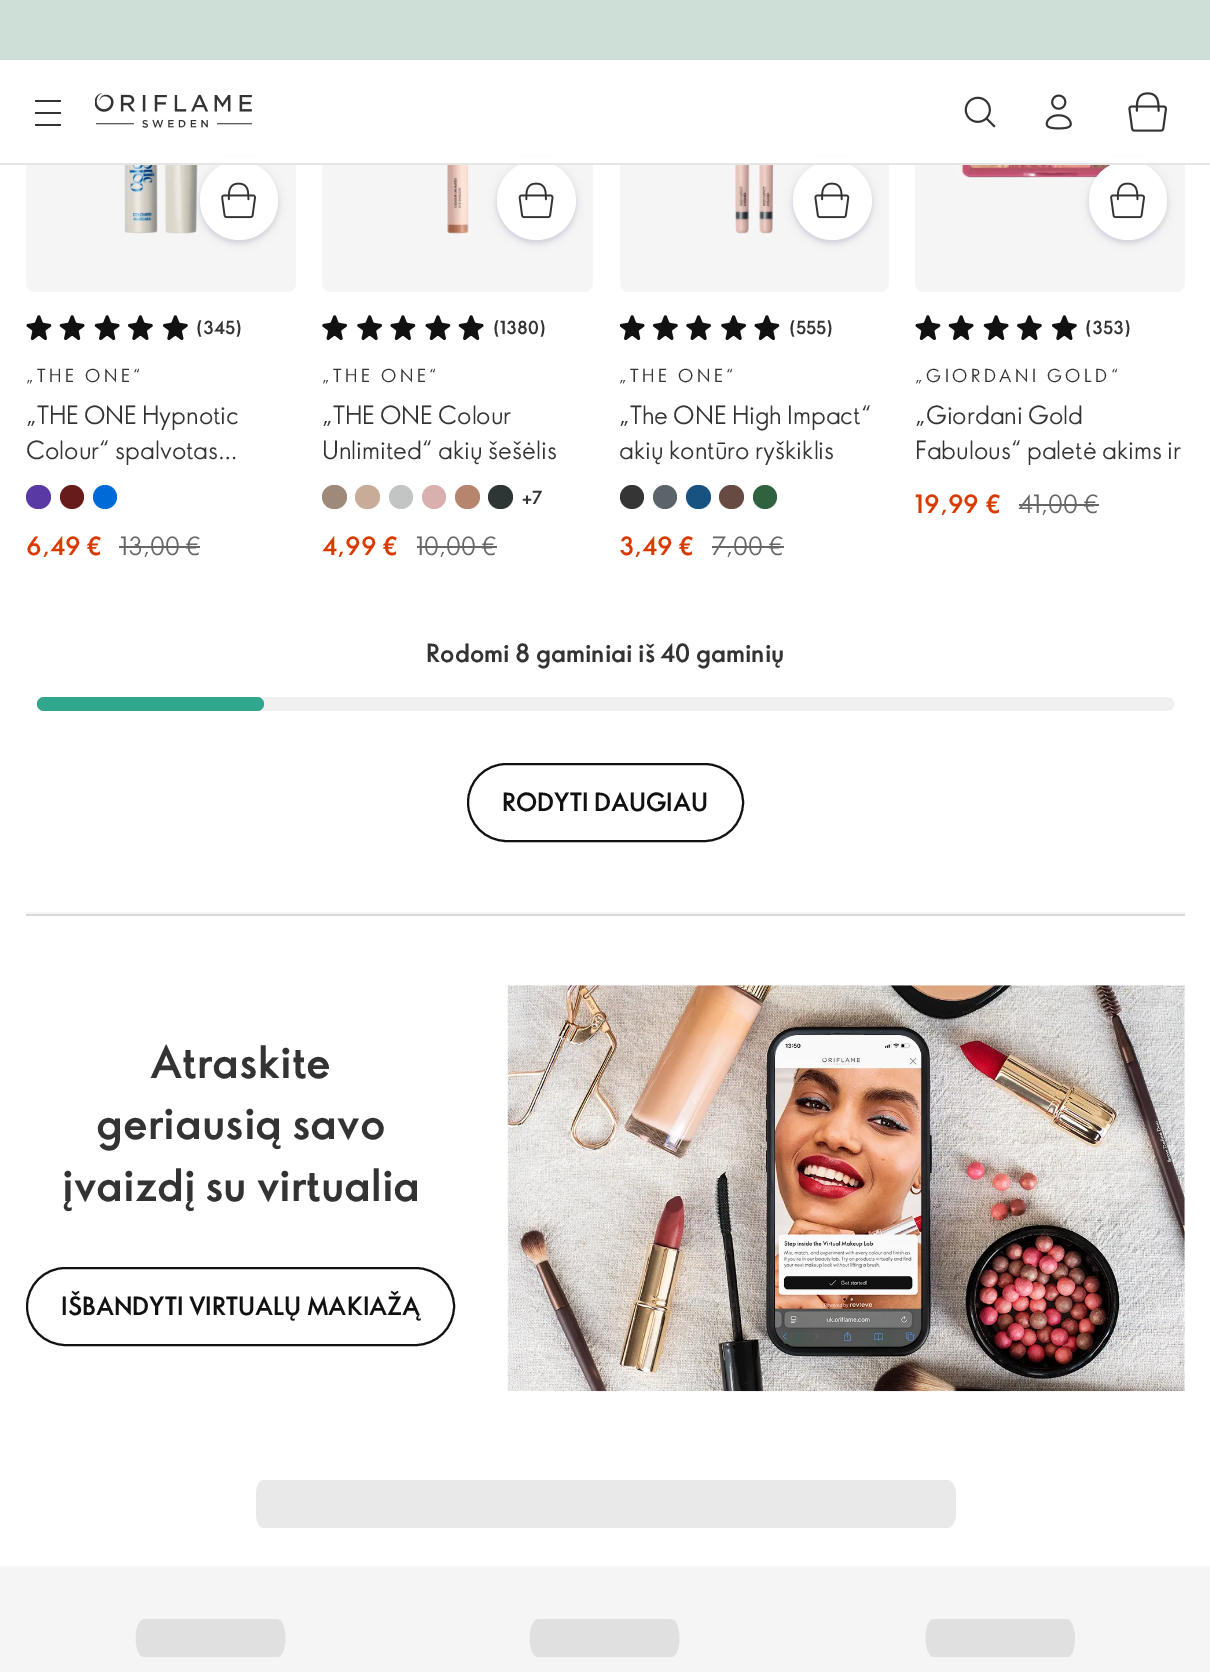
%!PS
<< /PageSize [1210 1672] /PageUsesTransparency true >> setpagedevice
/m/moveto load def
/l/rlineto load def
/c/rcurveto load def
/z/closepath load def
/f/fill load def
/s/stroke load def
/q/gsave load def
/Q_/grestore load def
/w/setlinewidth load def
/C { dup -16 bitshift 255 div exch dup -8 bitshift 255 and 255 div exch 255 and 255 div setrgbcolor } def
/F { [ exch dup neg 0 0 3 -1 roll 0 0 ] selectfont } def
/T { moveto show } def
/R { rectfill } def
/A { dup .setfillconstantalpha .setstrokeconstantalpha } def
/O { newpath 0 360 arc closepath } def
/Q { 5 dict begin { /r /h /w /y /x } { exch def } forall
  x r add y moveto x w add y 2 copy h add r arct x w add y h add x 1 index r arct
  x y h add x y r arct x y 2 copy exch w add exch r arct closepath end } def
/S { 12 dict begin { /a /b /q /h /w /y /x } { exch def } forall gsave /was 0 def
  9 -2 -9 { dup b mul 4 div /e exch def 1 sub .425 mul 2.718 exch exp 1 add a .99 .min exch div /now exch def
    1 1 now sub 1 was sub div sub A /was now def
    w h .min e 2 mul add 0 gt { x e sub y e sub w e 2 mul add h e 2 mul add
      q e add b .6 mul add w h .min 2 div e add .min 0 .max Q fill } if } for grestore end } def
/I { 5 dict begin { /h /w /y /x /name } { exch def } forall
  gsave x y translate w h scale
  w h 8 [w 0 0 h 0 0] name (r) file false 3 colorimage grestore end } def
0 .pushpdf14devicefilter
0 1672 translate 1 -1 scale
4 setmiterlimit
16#FFFFFF C
0 0 1210 1672 R
16#F5F5F5 C
26 165 270 92 R
(5.rgb) 123 165 75 70 I
16#000042 C
200 163 78 79 39 4.5 .08 S
200 165 78 78 39 2 .08 S
16#FFFFFF C
200 161 78 79 39 Q f
16#F5F5F5 C
322 165 271 92 R
16#000042 C
497 163 79 79 39.5 4.5 .08 S
497 165 79 78 39 2 .08 S
16#FFFFFF C
536.5 200.5 39.5 O f
16#F5F5F5 C
620 165 269 92 R
16#000042 C
793 163 79 79 39.5 4.5 .08 S
793 165 79 78 39 2 .08 S
16#FFFFFF C
832.5 200.5 39.5 O f
16#F5F5F5 C
915 165 270 92 R
(16.rgb) 955 165 156 14 I
16#000042 C
1089 163 78 79 39 4.5 .08 S
1089 165 78 78 39 2 .08 S
16#FFFFFF C
1089 161 78 79 39 Q f
220 158 927 5 R
16#E5E5E5 C
0 163 1210 2 R
16#CEDFD7 C
0 0 1210 60 R
16#333333 C
35 100 26 2 R
35 112 26 2 R
35 124 26 2 R
(1.rgb) 95 93 157 35 I
(2.rgb) 964 96 32 32 I
(3.rgb) 1045 94 27 36 I
(4.rgb) 1128 92 39 40 I
(6.rgb) 221 182 35 37 I
16#F5F5F5 C
26 257 m 270 0 l 0 26 l 0 5 -4 9 -9 9 c -252 0 l -5 0 -9 -4 -9 -9 c z f
(7.rgb) 26 315 26 26 I
(8.rgb) 59 315 26 26 I
(8.rgb) 94 315 26 26 I
(9.rgb) 128 315 25 26 I
(9.rgb) 163 315 25 26 I
/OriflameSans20-Bold 17.5 F
16#333333 C
(\(345\)) 196 334 T
/OriflameSans20-Regular 17.5 F
26 382 m 3.5 0 („THE ONE“) ashow
/OriflameSans20-Regular 24.5 F
(„THE ONE Hypnotic) 26 424 T
(Colour“ spalvotas…) 26 459 T
16#593AA4 C
26 485 25 24 12 Q f
16#671C1A C
72 497 12 O f
16#006AD6 C
105 497 12 O f
/OriflameSans20-Bold 24.5 F
16#DA3A00 C
(6,49 €) 26 555 T
/OriflameSans20-Regular 24.5 F
16#666666 C
(13,00 €) 120 555 T
119 546 81 2 R
(10.rgb) 444 165 28 70 I
(11.rgb) 518 182 36 37 I
16#F5F5F5 C
322 257 m 271 0 l 0 26 l 0 5 -4 9 -9 9 c -253 0 l -5 0 -9 -4 -9 -9 c z f
(12.rgb) 322 315 25 26 I
(12.rgb) 357 315 25 26 I
(7.rgb) 390 315 26 26 I
(7.rgb) 425 315 26 26 I
(8.rgb) 458 315 26 26 I
/OriflameSans20-Bold 17.5 F
16#333333 C
(\(1380\)) 493 334 T
/OriflameSans20-Regular 17.5 F
322 382 m 3.5 0 („THE ONE“) ashow
/OriflameSans20-Regular 24.5 F
(„THE ONE Colour) 322 424 T
(Unlimited“ akių šešėlis) 322 459 T
16#9F897A C
322 485 25 24 12 Q f
16#C8AC98 C
355 485 25 24 12 Q f
16#C2C5C4 C
401 497 12 O f
16#D9B0AE C
434 497 12 O f
16#B7856D C
455 485 25 24 12 Q f
16#2D3535 C
488 485 25 24 12 Q f
/OriflameSans20-Bold 17.5 F
16#333333 C
(+7) 522 504 T
/OriflameSans20-Bold 24.5 F
16#DA3A00 C
(4,99 €) 322 555 T
/OriflameSans20-Regular 24.5 F
16#666666 C
(10,00 €) 416 555 T
417 546 80 2 R
(13.rgb) 734 165 40 71 I
(14.rgb) 814 182 36 37 I
16#F5F5F5 C
620 257 m 269 0 l 0 26 l 0 5 -4 9 -9 9 c -251 0 l -5 0 -9 -4 -9 -9 c z f
(15.rgb) 620 315 25 26 I
(9.rgb) 653 315 25 26 I
(12.rgb) 686 315 25 26 I
(12.rgb) 721 315 25 26 I
(7.rgb) 754 315 26 26 I
/OriflameSans20-Bold 17.5 F
16#333333 C
(\(555\)) 789 334 T
/OriflameSans20-Regular 17.5 F
619 382 m 3.5 0 („THE ONE“) ashow
/OriflameSans20-Regular 24.5 F
(„The ONE High Impact“) 619 424 T
q
620 397 269 70 rectclip
(akių kontūro ryškiklis) 619 459 T
Q_
16#353535 C
632 497 12 O f
16#5B6469 C
665 497 12 O f
16#185280 C
686 485 25 24 12 Q f
16#674B42 C
719 485 25 24 12 Q f
16#2F633F C
765 497 12 O f
/OriflameSans20-Bold 24.5 F
16#DA3A00 C
(3,49 €) 619 555 T
/OriflameSans20-Regular 24.5 F
16#666666 C
(7,00 €) 712 555 T
712 546 72 2 R
(6.rgb) 1110 182 35 37 I
16#F5F5F5 C
915 257 m 270 0 l 0 26 l 0 5 -4 9 -9 9 c -252 0 l -5 0 -9 -4 -9 -9 c z f
(7.rgb) 915 315 26 26 I
(8.rgb) 948 315 26 26 I
(8.rgb) 983 315 26 26 I
(9.rgb) 1017 315 25 26 I
(9.rgb) 1052 315 25 26 I
/OriflameSans20-Bold 17.5 F
16#333333 C
(\(353\)) 1085 334 T
/OriflameSans20-Regular 17.5 F
915 382 m 3.5 0 („GIORDANI GOLD“) ashow
/OriflameSans20-Regular 24.5 F
(„Giordani Gold) 915 424 T
(Fabulous“ paletė akims ir) 915 459 T
/OriflameSans20-Bold 24.5 F
16#DA3A00 C
(19,99 €) 915 513 T
/OriflameSans20-Regular 24.5 F
16#666666 C
(41,00 €) 1018 513 T
1019 504 80 2 R
/OriflameSans20-Bold 24.5 F
16#333333 C
(Rodomi 8 gaminiai iš 40 gaminių) 426 662 T
16#F0F0F0 C
37 697 1137 14 7 Q f
16#32A58E C
37 697 227 14 7 Q f
16#111111 C
2 w
468 764 275 77 38.5 Q s
(RODYTI DAUGIAU) 502 811 T
16#F5F5F5 C
26 912 1159 2 R
16#D8D8D8 C
26 914 1159 2 R
/OriflameSans20-Bold 43.75 F
16#333333 C
(Atraskite) 150 1078 T
(geriausią savo) 96 1139 T
(įvaizdį su virtualia) 62 1201 T
16#111111 C
27 1268 427 77 38.5 Q s
/OriflameSans20-Bold 24.5 F
(IŠBANDYTI VIRTUALŲ MAKIAŽĄ) 61 1315 T
(17.rgb) 507 985 678 407 I
16#E9E9E9 C
264 1480 m 683 0 l 5 0 9 7 9 15 c 0 18 l 0 8 -4 15 -9 15 c -683 0 l -5 0 -8 -7 -8 -15 c 0 -18 l 0 -8 3 -15 8 -15 c z f
16#F5F5F5 C
0 1566 1210 106 R
16#E0E0E0 C
145 1619 m 131 0 l 4 1 l 7 5 8 34 -2 37 c -135 0 l -10 -3 -10 -38 2 -38 c z f
539 1619 m 131 0 l 4 1 l 7 5 8 34 -2 37 c -135 0 l -10 -3 -10 -38 2 -38 c z f
934 1619 m 132 0 l 3 1 l 8 5 8 34 -1 37 c -135 0 l -10 -3 -10 -38 1 -38 c z f
.poppdf14devicefilter showpage
